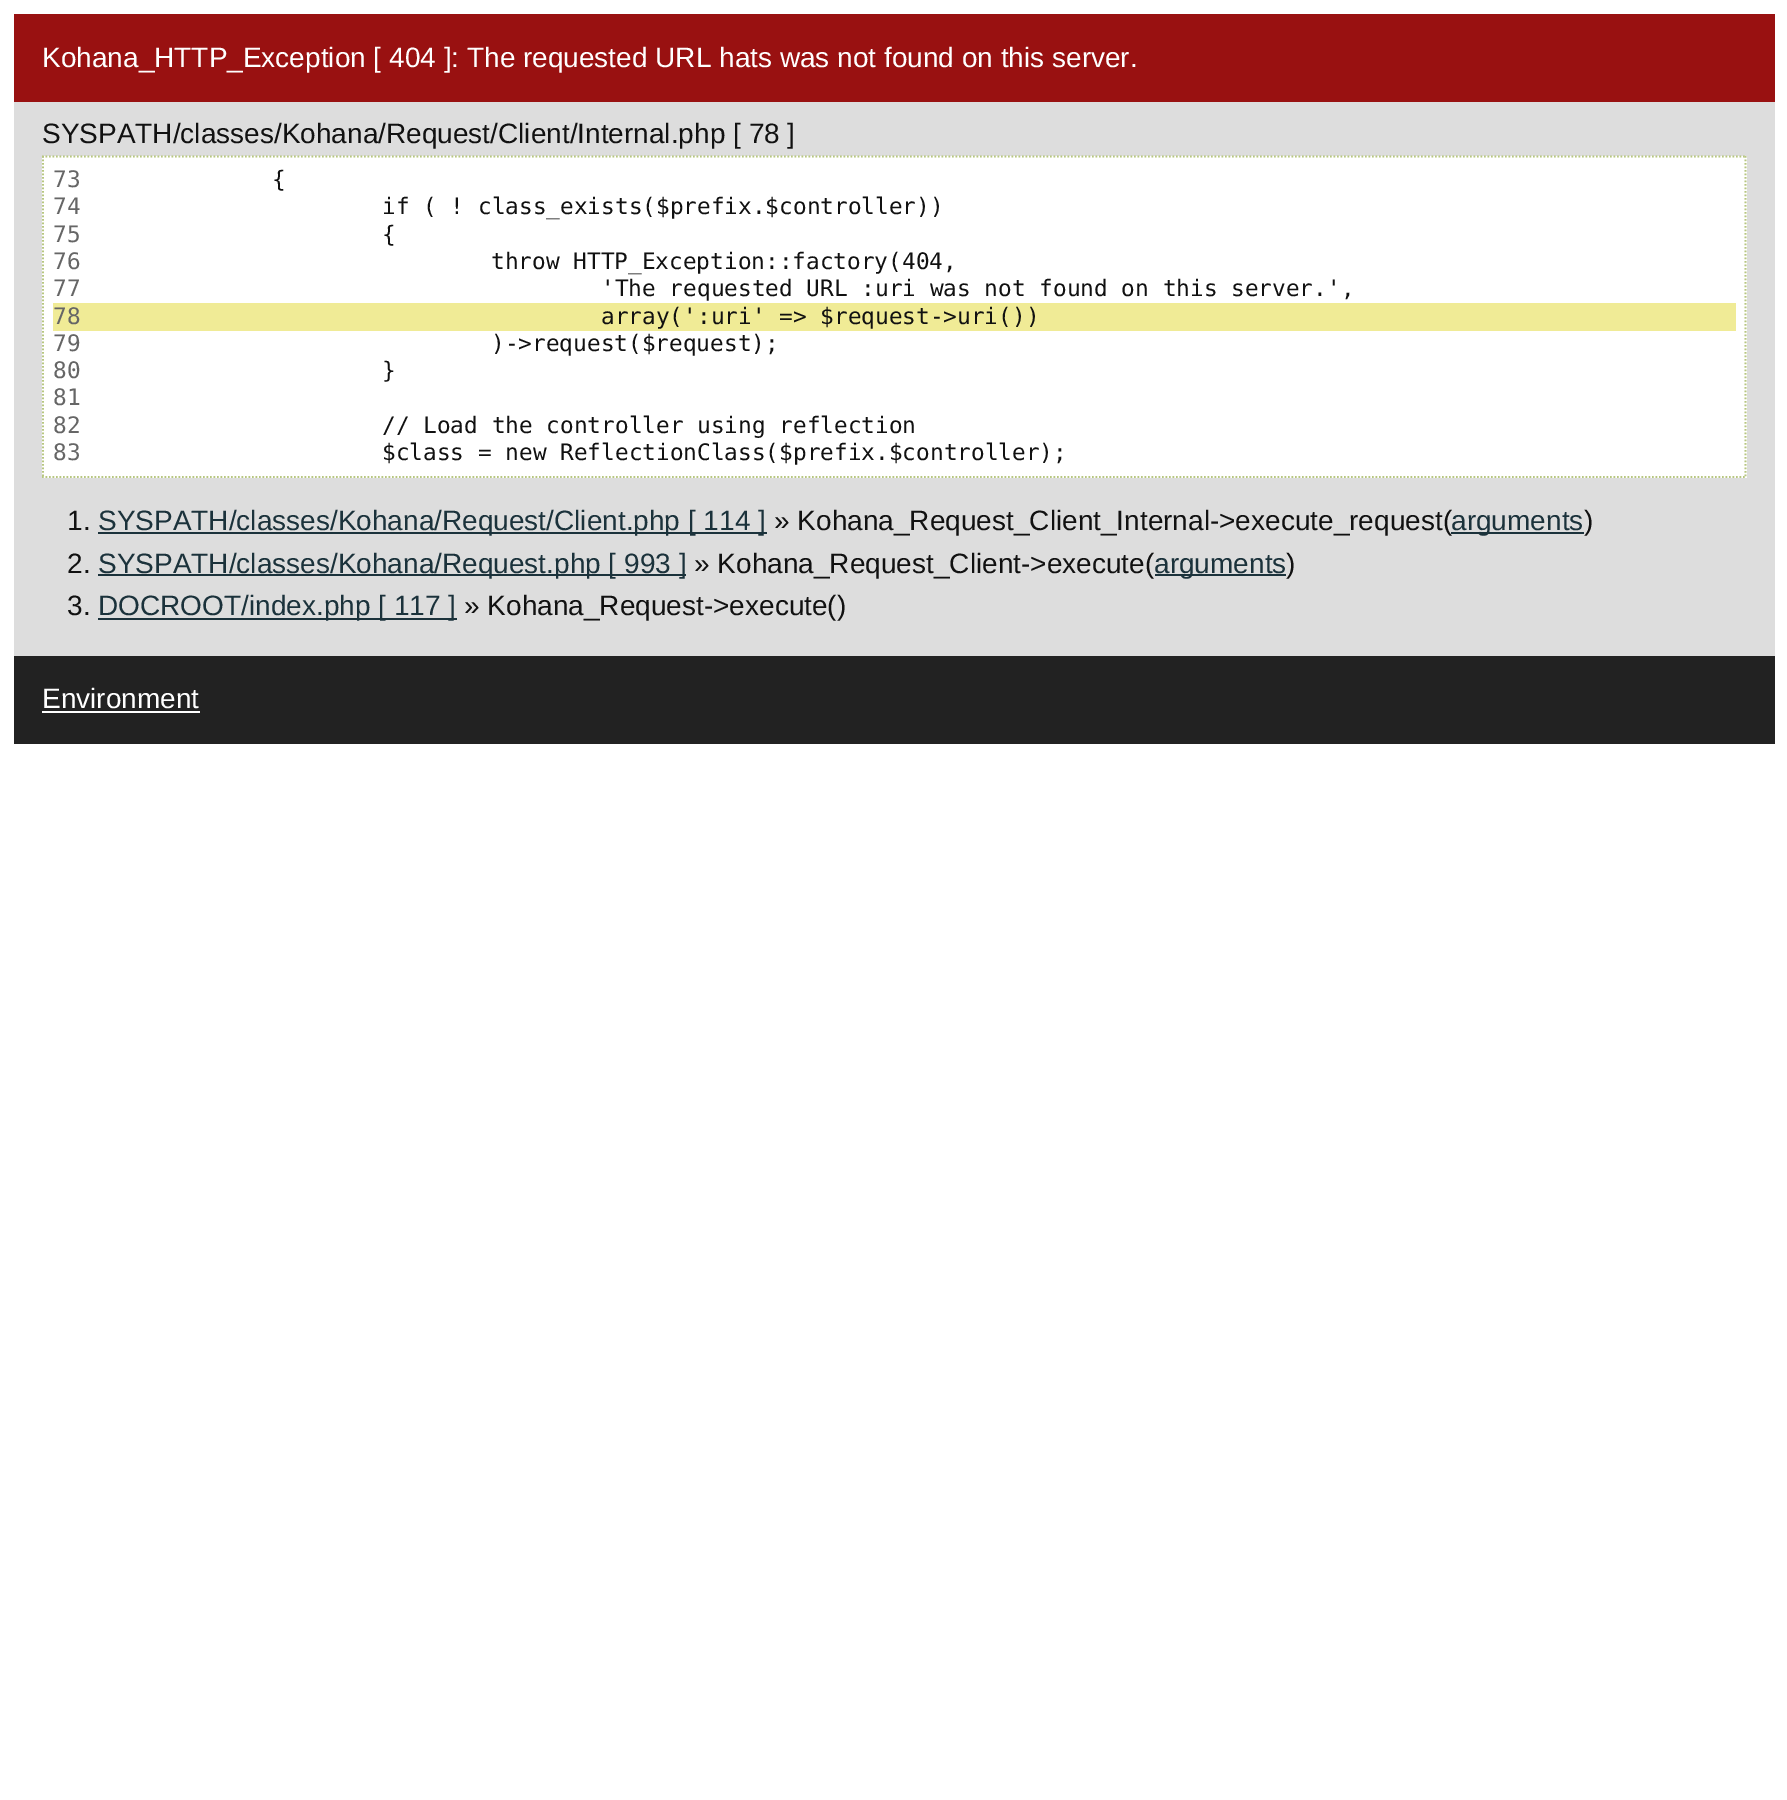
%!PS
<< /PageSize [1787 1800] >> setpagedevice
/m/moveto load def
/l/rlineto load def
/s/stroke load def
/w/setlinewidth load def
/C { dup -16 bitshift 255 div exch dup -8 bitshift 255 and 255 div exch 255 and 255 div setrgbcolor } def
/F { [ exch dup neg 0 0 3 -1 roll 0 0 ] selectfont } def
/T { moveto show } def
/R { rectfill } def
0 1800 translate 1 -1 scale
4 setmiterlimit
16#FFFFFF C
0 0 1787 1800 R
16#DDDDDD C
14 102 1761 554 R
16#991111 C
14 14 1761 88 R
/LiberationSans-Regular 28 F
16#FFFFFF C
(Kohana_HTTP_Exception [ 404 ]: The requested URL hats was not found on this server.) 42 67 T
16#111111 C
(SYSPATH/classes/Kohana/Request/Client/Internal.php [ 78 ]) 42 143 T
16#FFFFFF C
42 156 1705 322 R
16#B7C680 C
1.8 w
[1.75 1.75] 0 setdash
42 156.5 m 1704.5 0 l s
1745.5 156 m 0 322 l s
42 477 m 1704.5 0 l s
43 156 m 0 322 l s
/DejaVuSansMono-Regular 22.75 F
16#666666 C
(73) 53 187 T
16#111111 C
({) 272 187 T
16#666666 C
(74) 53 214 T
16#111111 C
(if \( ! class_exists\($prefix.$controller\)\)) 382 214 T
16#666666 C
(75) 53 242 T
16#111111 C
({) 382 242 T
16#666666 C
(76) 53 269 T
16#111111 C
(throw HTTP_Exception::factory\(404,) 491 269 T
16#666666 C
(77) 53 296 T
16#111111 C
('The requested URL :uri was not found on this server.',) 601 296 T
16#F0EB96 C
53 303 1683 28 R
16#666666 C
(78) 53 324 T
16#111111 C
(array\(':uri' => $request->uri\(\)\)) 601 324 T
16#666666 C
(79) 53 351 T
16#111111 C
(\)->request\($request\);) 491 351 T
16#666666 C
(80) 53 378 T
16#111111 C
(}) 382 378 T
16#666666 C
(81) 53 405 T
(82) 53 433 T
16#111111 C
(// Load the controller using reflection) 382 433 T
16#666666 C
(83) 53 460 T
16#111111 C
($class = new ReflectionClass\($prefix.$controller\);) 382 460 T
/LiberationSans-Regular 28 F
(1.) 67 530 T
16#1B323B C
98 532 669 2 R
(SYSPATH/classes/Kohana/Request/Client.php [ 114 ]) 98 530 T
16#111111 C
(» Kohana_Request_Client_Internal->execute_request\() 774 530 T
16#1B323B C
1451 532 133 2 R
(arguments) 1451 530 T
16#111111 C
(\)) 1584 530 T
(2.) 67 573 T
16#1B323B C
98 574 588 2 R
(SYSPATH/classes/Kohana/Request.php [ 993 ]) 98 573 T
16#111111 C
(» Kohana_Request_Client->execute\() 694 573 T
16#1B323B C
1155 574 131 2 R
(arguments) 1154 573 T
16#111111 C
(\)) 1286 573 T
(3.) 67 615 T
16#1B323B C
98 618 359 2 R
(DOCROOT/index.php [ 117 ]) 98 615 T
16#111111 C
(» Kohana_Request->execute\(\)) 464 615 T
16#222222 C
14 656 1761 88 R
16#FFFFFF C
(Environment) 42 708 T
42 711 158 2 R
showpage
